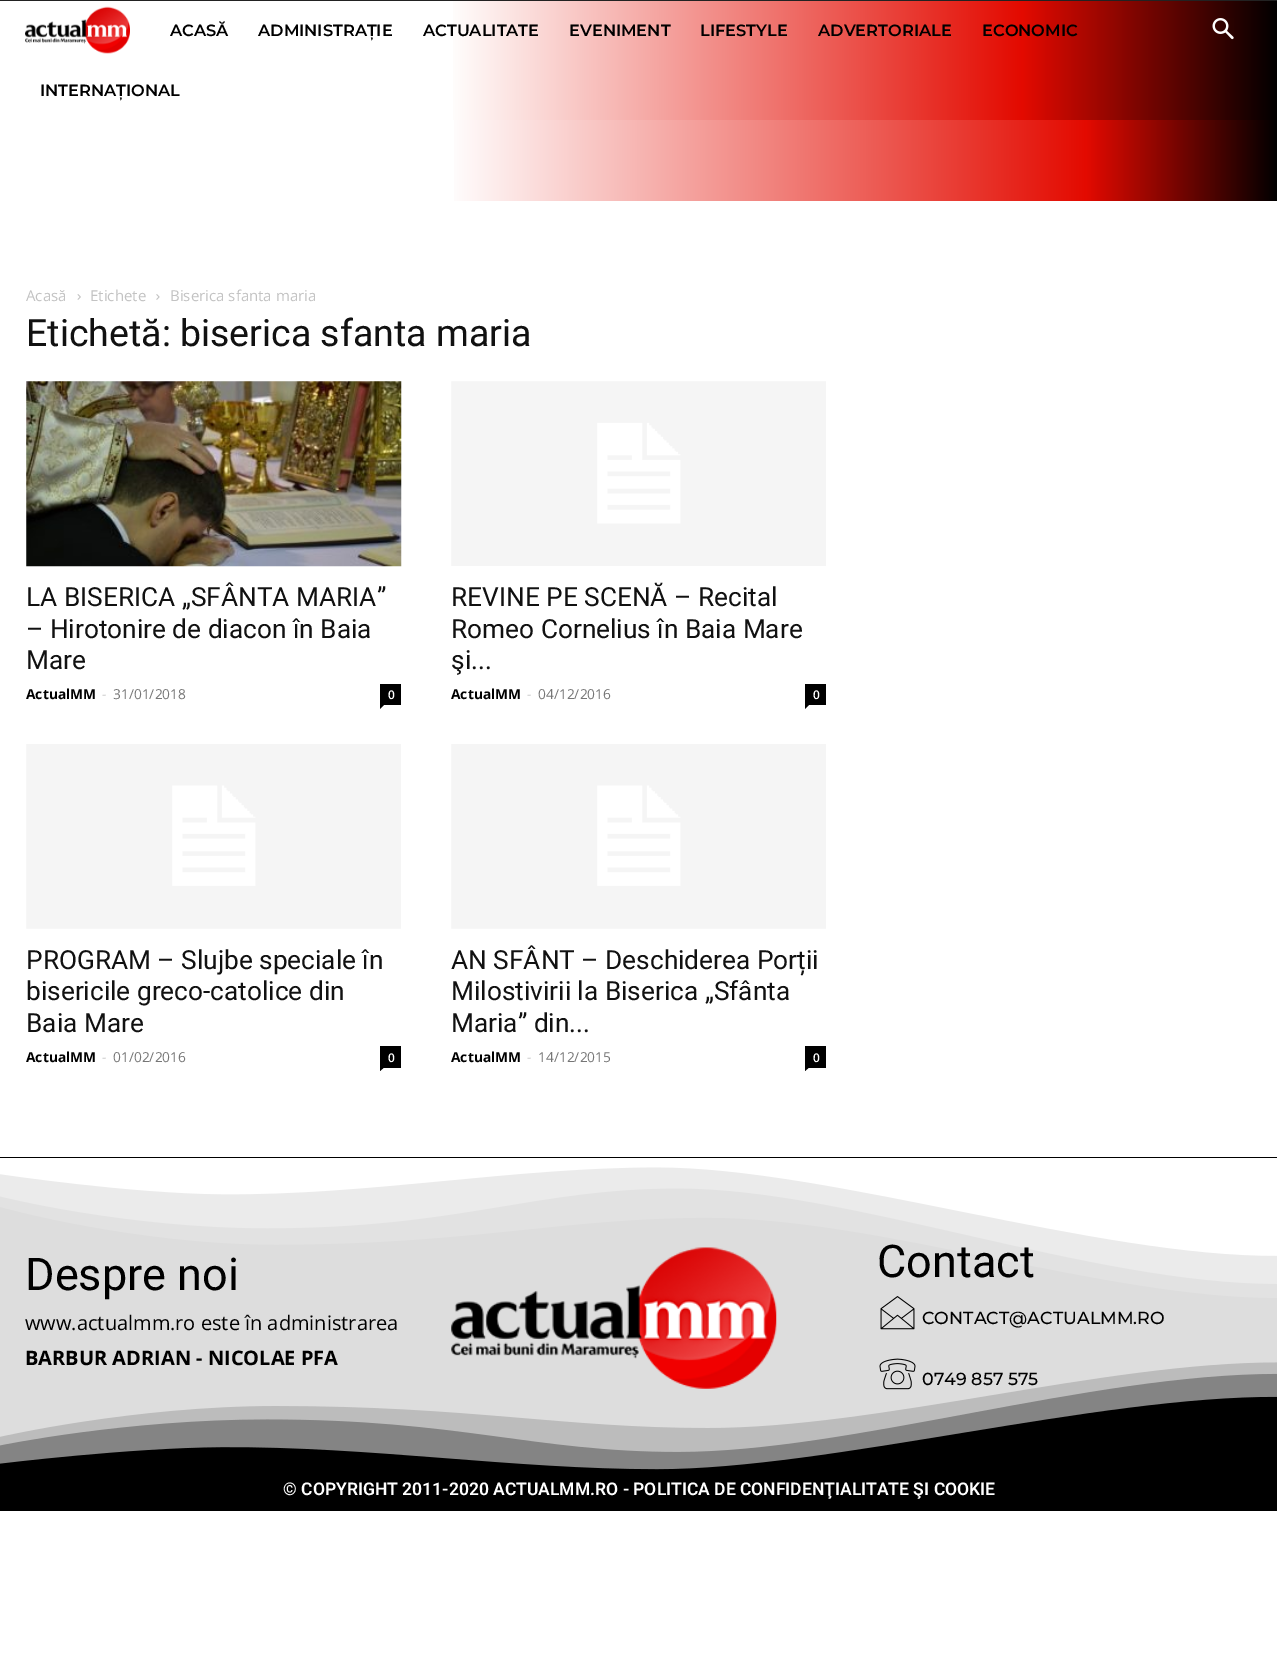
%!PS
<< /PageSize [1277 1655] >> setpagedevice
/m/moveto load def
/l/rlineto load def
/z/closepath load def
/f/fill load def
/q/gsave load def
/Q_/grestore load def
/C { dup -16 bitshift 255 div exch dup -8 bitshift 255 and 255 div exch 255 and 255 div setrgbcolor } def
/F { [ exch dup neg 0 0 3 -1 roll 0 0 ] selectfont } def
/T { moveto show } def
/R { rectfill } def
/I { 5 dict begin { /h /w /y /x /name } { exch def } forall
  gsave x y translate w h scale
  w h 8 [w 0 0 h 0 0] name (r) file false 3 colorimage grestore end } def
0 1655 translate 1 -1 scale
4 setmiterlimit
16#FFFFFF C
0 0 1277 1655 R
16#222222 C
0 0 1277 1 R
q 454 120 m 823 0 l 0 81 l -823 0 l z clip newpath
<< /ShadingType 2 /ColorSpace /DeviceRGB /Coords [0 101 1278 101] /Extend [true true] /Function << /FunctionType 3 /Domain [0 1] /Functions [<< /FunctionType 2 /Domain [0 1] /C0 [1 1 1] /C1 [1 1 1] /N 1 >> << /FunctionType 2 /Domain [0 1] /C0 [1 1 1] /C1 [.89 .039 0] /N 1 >> << /FunctionType 2 /Domain [0 1] /C0 [.89 .039 0] /C1 [0 0 0] /N 1 >>] /Bounds [.35 .85] /Encode [0 1 0 1 0 1] >> >> shfill Q_
q 453 1 m 824 0 l 0 119 l -824 0 l z clip newpath
<< /ShadingType 2 /ColorSpace /DeviceRGB /Coords [0 60 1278 60] /Extend [true true] /Function << /FunctionType 3 /Domain [0 1] /Functions [<< /FunctionType 2 /Domain [0 1] /C0 [1 1 1] /C1 [1 1 1] /N 1 >> << /FunctionType 2 /Domain [0 1] /C0 [1 1 1] /C1 [.89 .039 0] /N 1 >> << /FunctionType 2 /Domain [0 1] /C0 [.89 .039 0] /C1 [0 0 0] /N 1 >>] /Bounds [.35 .8] /Encode [0 1 0 1 0 1] >> >> shfill Q_
(1.rgb) 25 6 105 48 I
/Montserrat-SemiBold 16.25 F
16#000000 C
(ACASĂ) 170 36 T
(ADMINISTRAȚIE) 258 36 T
(ACTUALITATE) 423 36 T
(EVENIMENT) 569 36 T
(LIFESTYLE) 700 36 T
(ADVERTORIALE) 818 36 T
(ECONOMIC) 982 36 T
(INTERNAȚIONAL) 40 96 T
(2.rgb) 1212 18 22 22 I
/OpenSans-Regular 15 F
16#C3C3C3 C
(Acasă) 26 301 T
(3.rgb) 77 294 4 6 I
(Etichete) 90 301 T
(4.rgb) 156 294 4 6 I
(Biserica sfanta maria) 170 301 T
/Roboto-Regular 37.5 F
16#111111 C
(Etichetă: biserica sfanta maria) 26 346 T
(5.rgb) 26 381 376 186 I
/Roboto-Regular 26.25 F
(LA BISERICA „SFÂNTA MARIA”) 26 606 T
(– Hirotonire de diacon în Baia) 26 638 T
(Mare) 26 669 T
/OpenSans-Bold 13.75 F
16#000000 C
(ActualMM) 26 699 T
/OpenSans-Regular 13.75 F
16#CCCCCC C
(-) 102 699 T
16#767676 C
(31/01/2018) 113 699 T
16#000000 C
380 684 21 21 R
/OpenSans-SemiBold 12 F
16#FFFFFF C
(0) 388 699 T
16#000000 C
380 705 m 4 0 l -4 4 l z f
(6.rgb) 451 381 375 185 I
/Roboto-Regular 26.25 F
16#111111 C
(REVINE PE SCENĂ – Recital) 451 606 T
(Romeo Cornelius în Baia Mare) 451 638 T
(şi...) 451 669 T
/OpenSans-Bold 13.75 F
16#000000 C
(ActualMM) 451 699 T
/OpenSans-Regular 13.75 F
16#CCCCCC C
(-) 527 699 T
16#767676 C
(04/12/2016) 538 699 T
16#000000 C
805 684 21 21 R
/OpenSans-SemiBold 12 F
16#FFFFFF C
(0) 813 699 T
16#000000 C
805 705 m 4 0 l -4 4 l z f
(7.rgb) 26 744 375 185 I
/Roboto-Regular 26.25 F
16#111111 C
(PROGRAM – Slujbe speciale în) 26 969 T
(bisericile greco-catolice din) 26 1000 T
(Baia Mare) 26 1032 T
/OpenSans-Bold 13.75 F
16#000000 C
(ActualMM) 26 1062 T
/OpenSans-Regular 13.75 F
16#CCCCCC C
(-) 102 1062 T
16#767676 C
(01/02/2016) 113 1062 T
16#000000 C
380 1046 21 22 R
/OpenSans-SemiBold 12 F
16#FFFFFF C
(0) 388 1062 T
16#000000 C
380 1067.5 m 4 0 l -4 3.5 l z f
(7.rgb) 451 744 375 185 I
/Roboto-Regular 26.25 F
16#111111 C
(AN SFÂNT – Deschiderea Porții) 451 969 T
(Milostivirii la Biserica „Sfânta) 451 1000 T
(Maria” din...) 451 1032 T
/OpenSans-Bold 13.75 F
16#000000 C
(ActualMM) 451 1062 T
/OpenSans-Regular 13.75 F
16#CCCCCC C
(-) 527 1062 T
16#767676 C
(14/12/2015) 538 1062 T
16#000000 C
805 1046 21 22 R
/OpenSans-SemiBold 12 F
16#FFFFFF C
(0) 813 1062 T
16#000000 C
805 1067.5 m 4 0 l -4 3.5 l z f
0 1157 1277 354 R
16#DDDDDD C
0 1167 1277 303 R
(8.rgb) 0 1158 1277 140 I
(9.rgb) 0 1362 1277 114 I
/Roboto-Regular 45 F
16#000000 C
(Despre noi) 25 1290 T
/OpenSans-Regular 20 F
(www.actualmm.ro este în administrarea) 25 1330 T
/OpenSans-Bold 20 F
(BARBUR ADRIAN - NICOLAE PFA) 25 1365 T
(10.rgb) 451 1247 326 142 I
/Roboto-Regular 45 F
(Contact) 877 1277 T
(11.rgb) 880 1296 35 34 I
/Montserrat-Medium 17.5 F
(CONTACT@ACTUALMM.RO) 922 1324 T
(12.rgb) 879 1358 37 32 I
(0749 857 575) 922 1385 T
/Roboto-SemiBold 17.5 F
16#FFFFFF C
(© COPYRIGHT 2011-2020 ACTUALMM.RO - POLITICA DE CONFIDENŢIALITATE ŞI COOKIE) 283 1495 T
showpage
